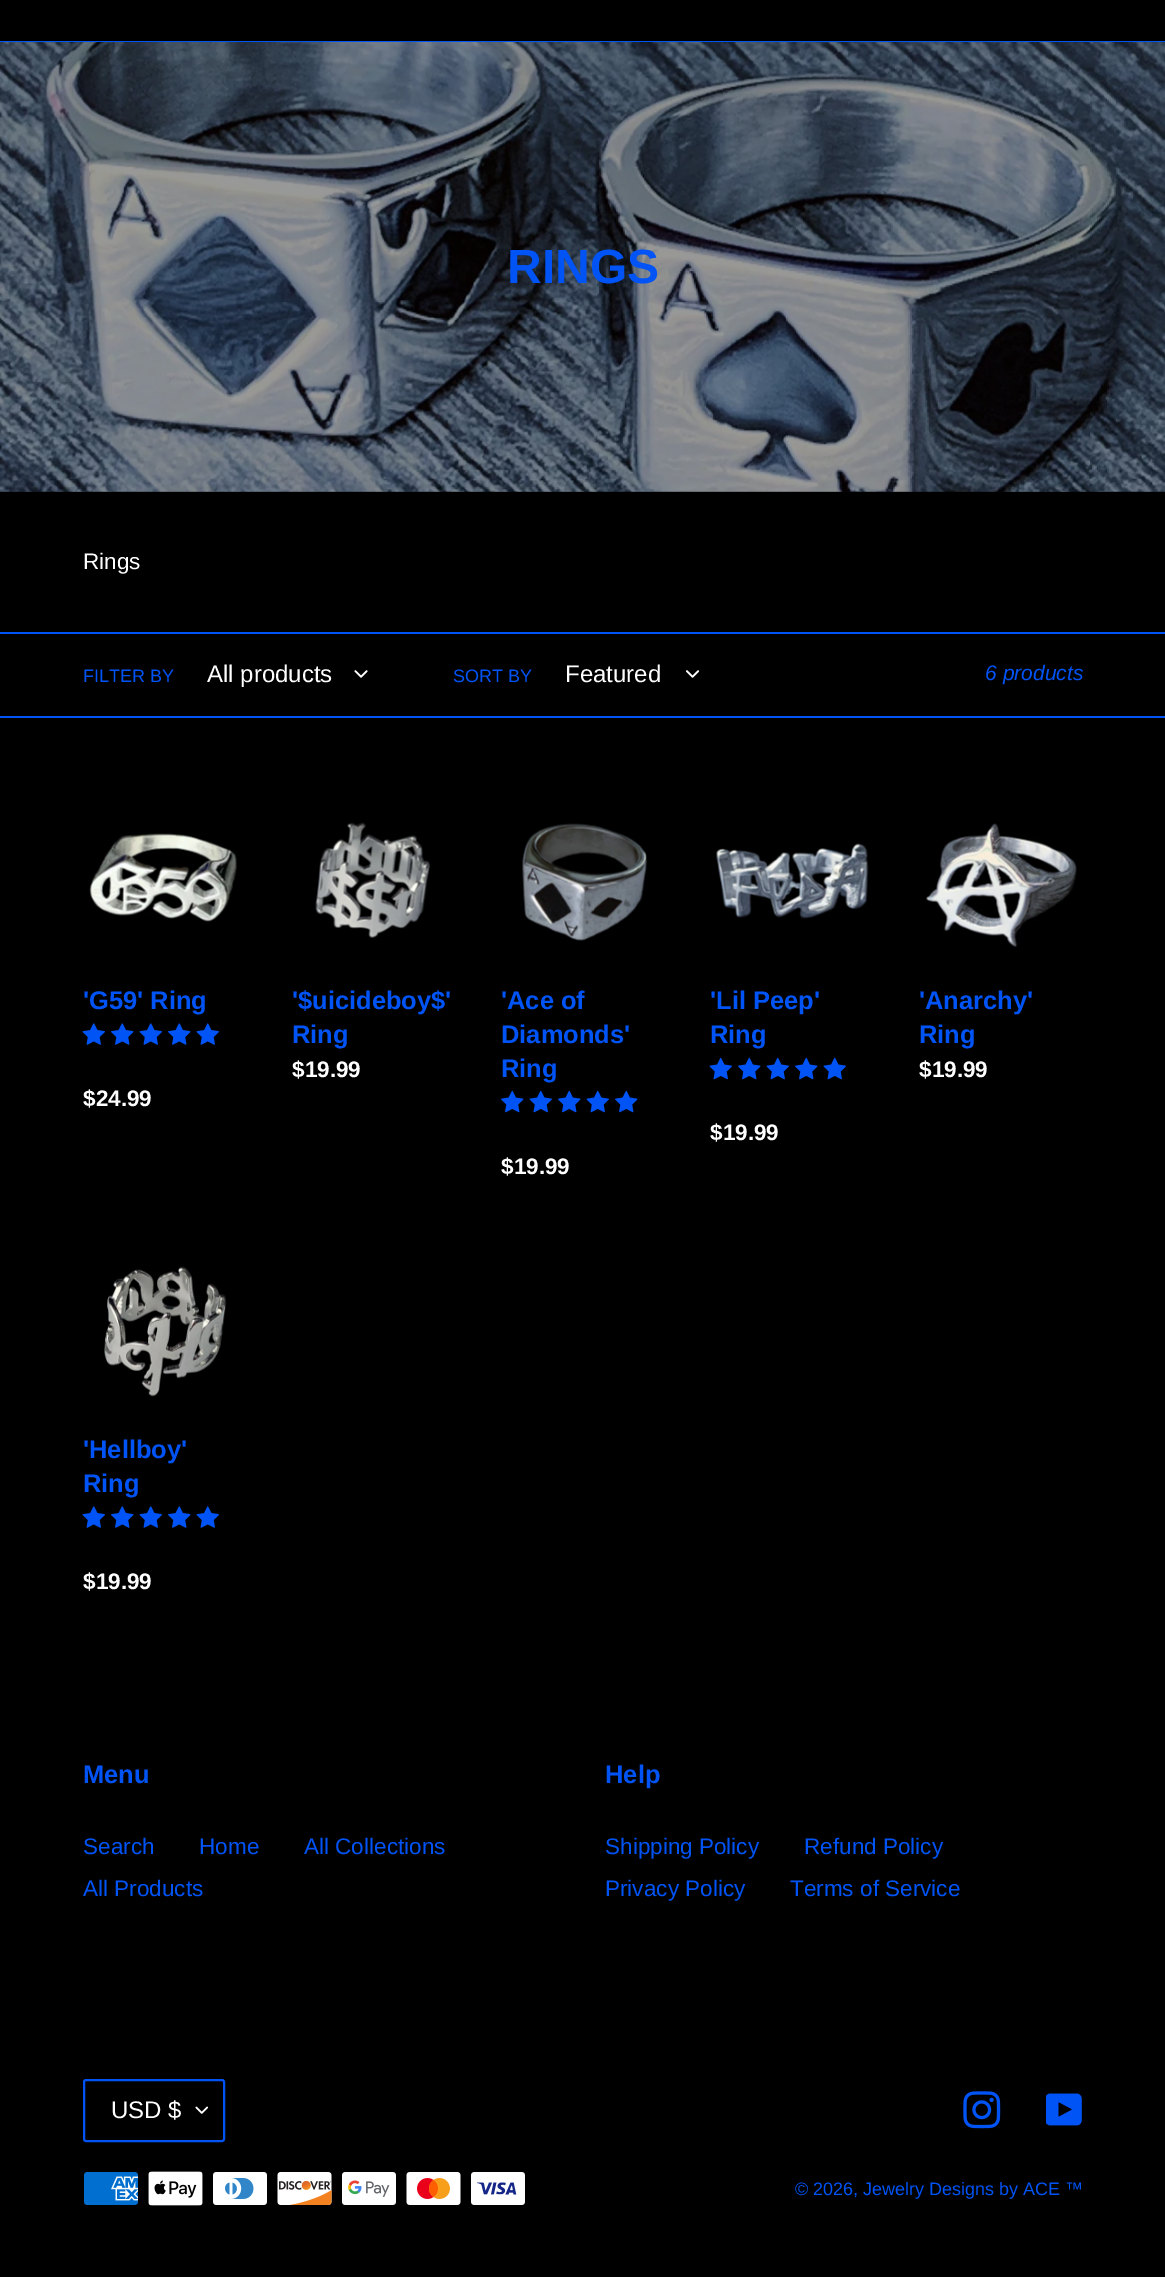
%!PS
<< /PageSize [1165 2277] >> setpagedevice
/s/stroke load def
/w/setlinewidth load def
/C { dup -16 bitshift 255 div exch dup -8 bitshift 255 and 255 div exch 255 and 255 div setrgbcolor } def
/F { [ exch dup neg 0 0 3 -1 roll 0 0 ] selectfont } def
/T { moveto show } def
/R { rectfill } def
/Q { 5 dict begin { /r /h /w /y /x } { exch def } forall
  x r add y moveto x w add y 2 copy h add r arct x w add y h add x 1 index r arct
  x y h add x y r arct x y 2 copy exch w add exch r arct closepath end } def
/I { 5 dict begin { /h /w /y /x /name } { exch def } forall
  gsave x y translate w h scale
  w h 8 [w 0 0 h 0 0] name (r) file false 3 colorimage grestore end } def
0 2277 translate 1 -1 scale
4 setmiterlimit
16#000000 C
0 0 1165 2277 R
16#0053F5 C
0 41 1165 1 R
(1.rgb) 0 42 1165 450 I
/LiberationSans-Bold 48 F
(RINGS) 507 283 T
/LiberationSans-Regular 22.5 F
16#FFFFFF C
(Rings) 83 569 T
16#0053F5 C
0 632 1165 2 R
0 716 1165 2 R
/LiberationSans-Regular 18 F
(FILTER BY) 83 682 T
/LiberationSans-Regular 24 F
16#FFFFFF C
(All products) 207 682 T
(2.rgb) 354 670 14 8 I
/LiberationSans-Regular 18 F
16#0053F5 C
(SORT BY) 453 682 T
/LiberationSans-Regular 24 F
16#FFFFFF C
(Featured) 565 682 T
(3.rgb) 686 670 14 8 I
/LiberationSans-Italic 21 F
16#0053F5 C
(6 products) 985 680 T
(4.rgb) 89 833 148 89 I
/LiberationSans-Bold 25.5 F
('G59' Ring) 83 1009 T
(5.rgb) 82 1023 23 22 I
(6.rgb) 111 1023 23 22 I
(5.rgb) 139 1023 23 22 I
(6.rgb) 168 1023 23 22 I
(5.rgb) 196 1023 23 22 I
/LiberationSans-Bold 22.5 F
16#FFFFFF C
($24.99) 83 1106 T
(7.rgb) 315 822 115 116 I
/LiberationSans-Bold 25.5 F
16#0053F5 C
('$uicideboy$') 292 1009 T
(Ring) 292 1043 T
/LiberationSans-Bold 22.5 F
16#FFFFFF C
($19.99) 292 1077 T
(8.rgb) 522 823 125 118 I
/LiberationSans-Bold 25.5 F
16#0053F5 C
('Ace of) 501 1009 T
(Diamonds') 501 1043 T
(Ring) 501 1077 T
(9.rgb) 501 1090 23 23 I
(10.rgb) 529 1090 23 23 I
(9.rgb) 558 1090 23 23 I
(10.rgb) 586 1090 23 23 I
(9.rgb) 615 1090 23 23 I
/LiberationSans-Bold 22.5 F
16#FFFFFF C
($19.99) 501 1174 T
(11.rgb) 716 843 153 76 I
/LiberationSans-Bold 25.5 F
16#0053F5 C
('Lil Peep') 710 1009 T
(Ring) 710 1043 T
(10.rgb) 709 1057 23 23 I
(9.rgb) 738 1057 23 23 I
(10.rgb) 766 1057 23 23 I
(9.rgb) 795 1057 23 23 I
(10.rgb) 823 1057 23 23 I
/LiberationSans-Bold 22.5 F
16#FFFFFF C
($19.99) 710 1140 T
(12.rgb) 926 823 151 124 I
/LiberationSans-Bold 25.5 F
16#0053F5 C
('Anarchy') 919 1009 T
(Ring) 919 1043 T
/LiberationSans-Bold 22.5 F
16#FFFFFF C
($19.99) 919 1077 T
(13.rgb) 104 1266 122 131 I
/LiberationSans-Bold 25.5 F
16#0053F5 C
('Hellboy') 83 1458 T
(Ring) 83 1492 T
(5.rgb) 82 1506 23 22 I
(6.rgb) 111 1506 23 22 I
(5.rgb) 139 1506 23 22 I
(6.rgb) 168 1506 23 22 I
(5.rgb) 196 1506 23 22 I
/LiberationSans-Bold 22.5 F
16#FFFFFF C
($19.99) 83 1589 T
/LiberationSans-Bold 25.5 F
16#0053F5 C
(Menu) 83 1783 T
/LiberationSans-Regular 22.5 F
(Search) 83 1854 T
(Home) 199 1854 T
(All Collections) 304 1854 T
(All Products) 83 1896 T
/LiberationSans-Bold 25.5 F
(Help) 605 1783 T
/LiberationSans-Regular 22.5 F
(Shipping Policy) 605 1854 T
(Refund Policy) 804 1854 T
(Privacy Policy) 605 1896 T
(Terms of Service) 790 1896 T
(14.rgb) 195 2106 14 8 I
2 w
84 2080 140 61 2 Q s
/LiberationSans-Regular 24 F
16#FFFFFF C
(USD $) 111 2118 T
(15.rgb) 963 2091 38 38 I
(16.rgb) 1046 2093 36 33 I
(17.rgb) 84 2172 54 33 I
(18.rgb) 148 2171 55 35 I
(19.rgb) 213 2172 54 33 I
(20.rgb) 277 2172 55 33 I
(21.rgb) 342 2172 54 33 I
(22.rgb) 406 2172 55 33 I
(23.rgb) 471 2172 54 33 I
/LiberationSans-Regular 18 F
16#0053F5 C
(© 2026, Jewelry Designs by ACE ™) 795 2195 T
showpage
